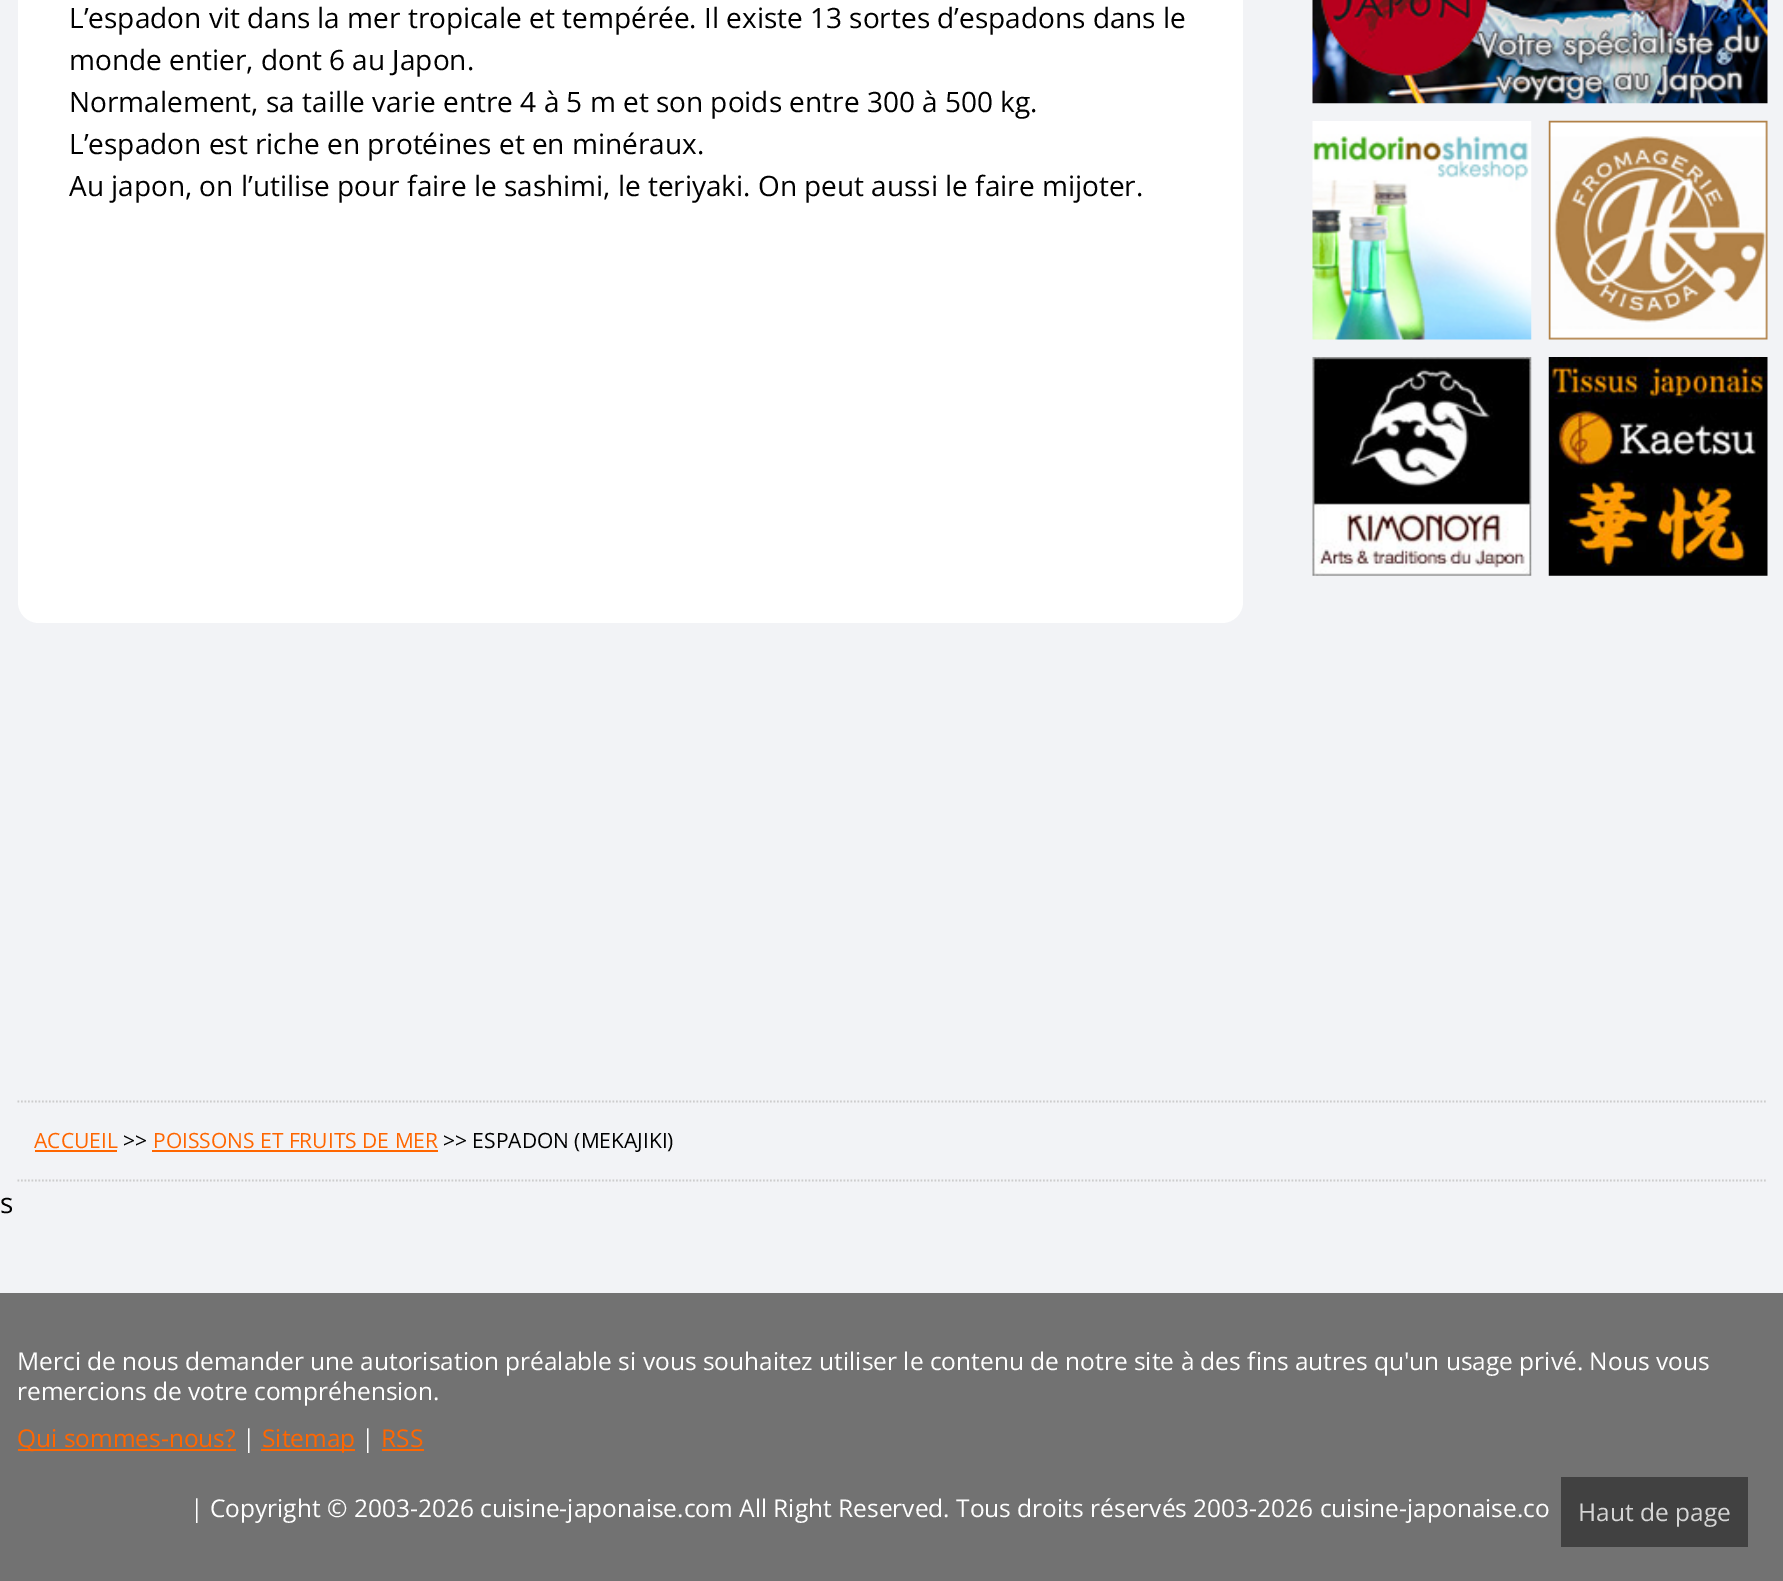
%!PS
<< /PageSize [1783 1581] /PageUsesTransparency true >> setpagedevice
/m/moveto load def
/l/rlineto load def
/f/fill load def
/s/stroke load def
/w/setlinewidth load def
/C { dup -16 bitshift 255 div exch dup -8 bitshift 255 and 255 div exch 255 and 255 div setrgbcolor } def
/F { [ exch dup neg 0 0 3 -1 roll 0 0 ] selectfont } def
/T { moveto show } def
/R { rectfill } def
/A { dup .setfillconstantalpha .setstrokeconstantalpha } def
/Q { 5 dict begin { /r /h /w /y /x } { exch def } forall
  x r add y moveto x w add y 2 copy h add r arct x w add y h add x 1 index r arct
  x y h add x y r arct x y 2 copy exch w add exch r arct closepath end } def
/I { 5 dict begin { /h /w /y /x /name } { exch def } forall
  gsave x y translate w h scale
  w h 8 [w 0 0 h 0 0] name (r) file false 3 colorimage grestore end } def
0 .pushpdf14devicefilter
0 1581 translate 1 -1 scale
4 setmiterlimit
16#F2F3F6 C
0 0 1783 1581 R
16#FFFFFF C
18 -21 1225 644 21 Q f
/OpenSans-Regular 28 F
16#000000 C
(L’espadon vit dans la mer tropicale et tempérée. Il existe 13 sortes d’espadons dans le) 69 28 T
(monde entier, dont 6 au Japon.) 69 70 T
(Normalement, sa taille varie entre 4 à 5 m et son poids entre 300 à 500 kg.) 69 112 T
(L’espadon est riche en protéines et en minéraux.) 69 154 T
(Au japon, on l’utilise pour faire le sashimi, le teriyaki. On peut aussi le faire mijoter.) 69 196 T
(1.rgb) 1312 0 456 104 I
(2.rgb) 1312 121 220 219 I
(3.rgb) 1548 120 220 220 I
(4.rgb) 1312 357 220 219 I
(5.rgb) 1548 357 220 219 I
16#CCCCCC C
1.8 w
[1.75 1.75] 0 setdash
17.5 1101.5 m 1750 0 l s
17.5 1180.5 m 1750 0 l s
/OpenSans-Regular 21 F
16#FF6600 C
(ACCUEIL) 34 1148 T
35 1150 82 2 R
16#000000 C
(>>) 123 1148 T
16#FF6600 C
(POISSONS ET FRUITS DE MER) 153 1148 T
152 1150 286 2 R
16#000000 C
(>> ESPADON \(MEKAJIKI\)) 443 1148 T
/OpenSans-Regular 28 F
(s) 0 1213 T
16#727272 C
0 1293 1783 288 R
/OpenSans-Regular 24.5 F
16#FFFFFF C
(Merci de nous demander une autorisation préalable si vous souhaitez utiliser le contenu de notre site à des fins autres qu'un usage privé. Nous vous) 17 1370 T
(remercions de votre compréhension.) 17 1400 T
16#FF6600 C
18 1449 218 2 R
(Qui sommes-nous?) 17 1447 T
16#FFFFFF C
(|) 242 1447 T
16#FF6600 C
261 1449 94 2 R
(Sitemap) 262 1447 T
16#FFFFFF C
(|) 361 1447 T
16#FF6600 C
(RSS) 381 1447 T
382 1449 42 2 R
16#FFFFFF C
(| Copyright © 2003-2026 cuisine-japonaise.com All Right Reserved. Tous droits réservés 2003-2026 cuisine-japonaise.co) 190 1517 T
0.78 A
16#333333 C
1561 1477 187 70 R
1 A
16#D5D5D5 C
(Haut de page) 1578 1521 T
.poppdf14devicefilter showpage
